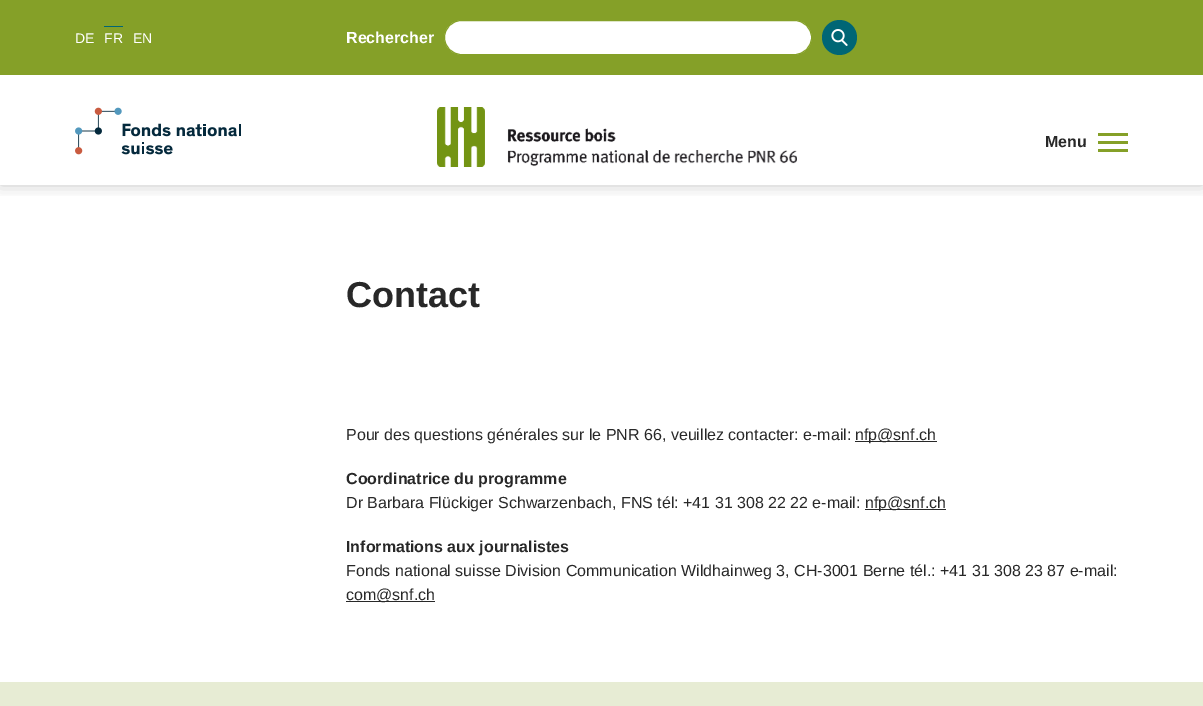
%!PS
<< /PageSize [1203 706] /PageUsesTransparency true >> setpagedevice
/f/fill load def
/s/stroke load def
/q/gsave load def
/Q_/grestore load def
/C { dup -16 bitshift 255 div exch dup -8 bitshift 255 and 255 div exch 255 and 255 div setrgbcolor } def
/F { [ exch dup neg 0 0 3 -1 roll 0 0 ] selectfont } def
/T { moveto show } def
/R { rectfill } def
/A { dup .setfillconstantalpha .setstrokeconstantalpha } def
/O { newpath 0 360 arc closepath } def
/Q { 5 dict begin { /r /h /w /y /x } { exch def } forall
  x r add y moveto x w add y 2 copy h add r arct x w add y h add x 1 index r arct
  x y h add x y r arct x y 2 copy exch w add exch r arct closepath end } def
/S { 12 dict begin { /a /b /q /h /w /y /x } { exch def } forall gsave /was 0 def
  9 -2 -9 { dup b mul 4 div /e exch def 1 sub .425 mul 2.718 exch exp 1 add a .99 .min exch div /now exch def
    1 1 now sub 1 was sub div sub A /was now def
    w h .min e 2 mul add 0 gt { x e sub y e sub w e 2 mul add h e 2 mul add
      q e add b .6 mul add w h .min 2 div e add .min 0 .max Q fill } if } for grestore end } def
/I { 5 dict begin { /h /w /y /x /name } { exch def } forall
  gsave x y translate w h scale
  w h 8 [w 0 0 h 0 0] name (r) file false 3 colorimage grestore end } def
0 .pushpdf14devicefilter
0 706 translate 1 -1 scale
4 setmiterlimit
16#FFFFFF C
0 0 1203 706 R
q
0 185 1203 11 rectclip
16#282828 C
0 0 1203 185 0 7.5 .25 S
Q_
16#85A028 C
0 0 1203 75 R
/LiberationSans-Regular 14 F
16#FFFFFF C
(DE) 75 43 T
16#006675 C
104 26 19 1 R
16#FFFFFF C
(FR) 104 43 T
(EN) 133 43 T
/LiberationSans-Bold 16 F
(Rechercher) 346 43 T
444.5 20.5 367 34 17 Q q f Q_
16#85A028 C
s
16#006675 C
839.5 37.5 17.5 O f
(1.rgb) 831 29 17 17 I
(2.rgb) 75 107 166 48 I
(3.rgb) 437 107 360 60 I
16#282828 C
(Menu) 1045 147 T
16#85A028 C
1098 141 30 3 R
1098 133 30 3 R
1098 149 30 3 R
/LiberationSans-Bold 36 F
16#282828 C
(Contact) 346 307 T
/LiberationSans-Regular 16 F
(Pour des questions générales sur le PNR 66, veuillez contacter: e-mail:) 346 440 T
855 441 82 1 R
(nfp@snf.ch) 855 440 T
/LiberationSans-Bold 16 F
(Coordinatrice du programme) 346 484 T
/LiberationSans-Regular 16 F
(Dr Barbara Flückiger Schwarzenbach, FNS tél: +41 31 308 22 22 e-mail:) 346 508 T
865 509 81 1 R
(nfp@snf.ch) 865 508 T
/LiberationSans-Bold 16 F
(Informations aux journalistes) 346 552 T
/LiberationSans-Regular 16 F
(Fonds national suisse Division Communication Wildhainweg 3, CH-3001 Berne tél.: +41 31 308 23 87 e-mail:) 346 576 T
346 601 89 1 R
(com@snf.ch) 346 600 T
16#E7ECD4 C
0 682 1203 24 R
.poppdf14devicefilter showpage
